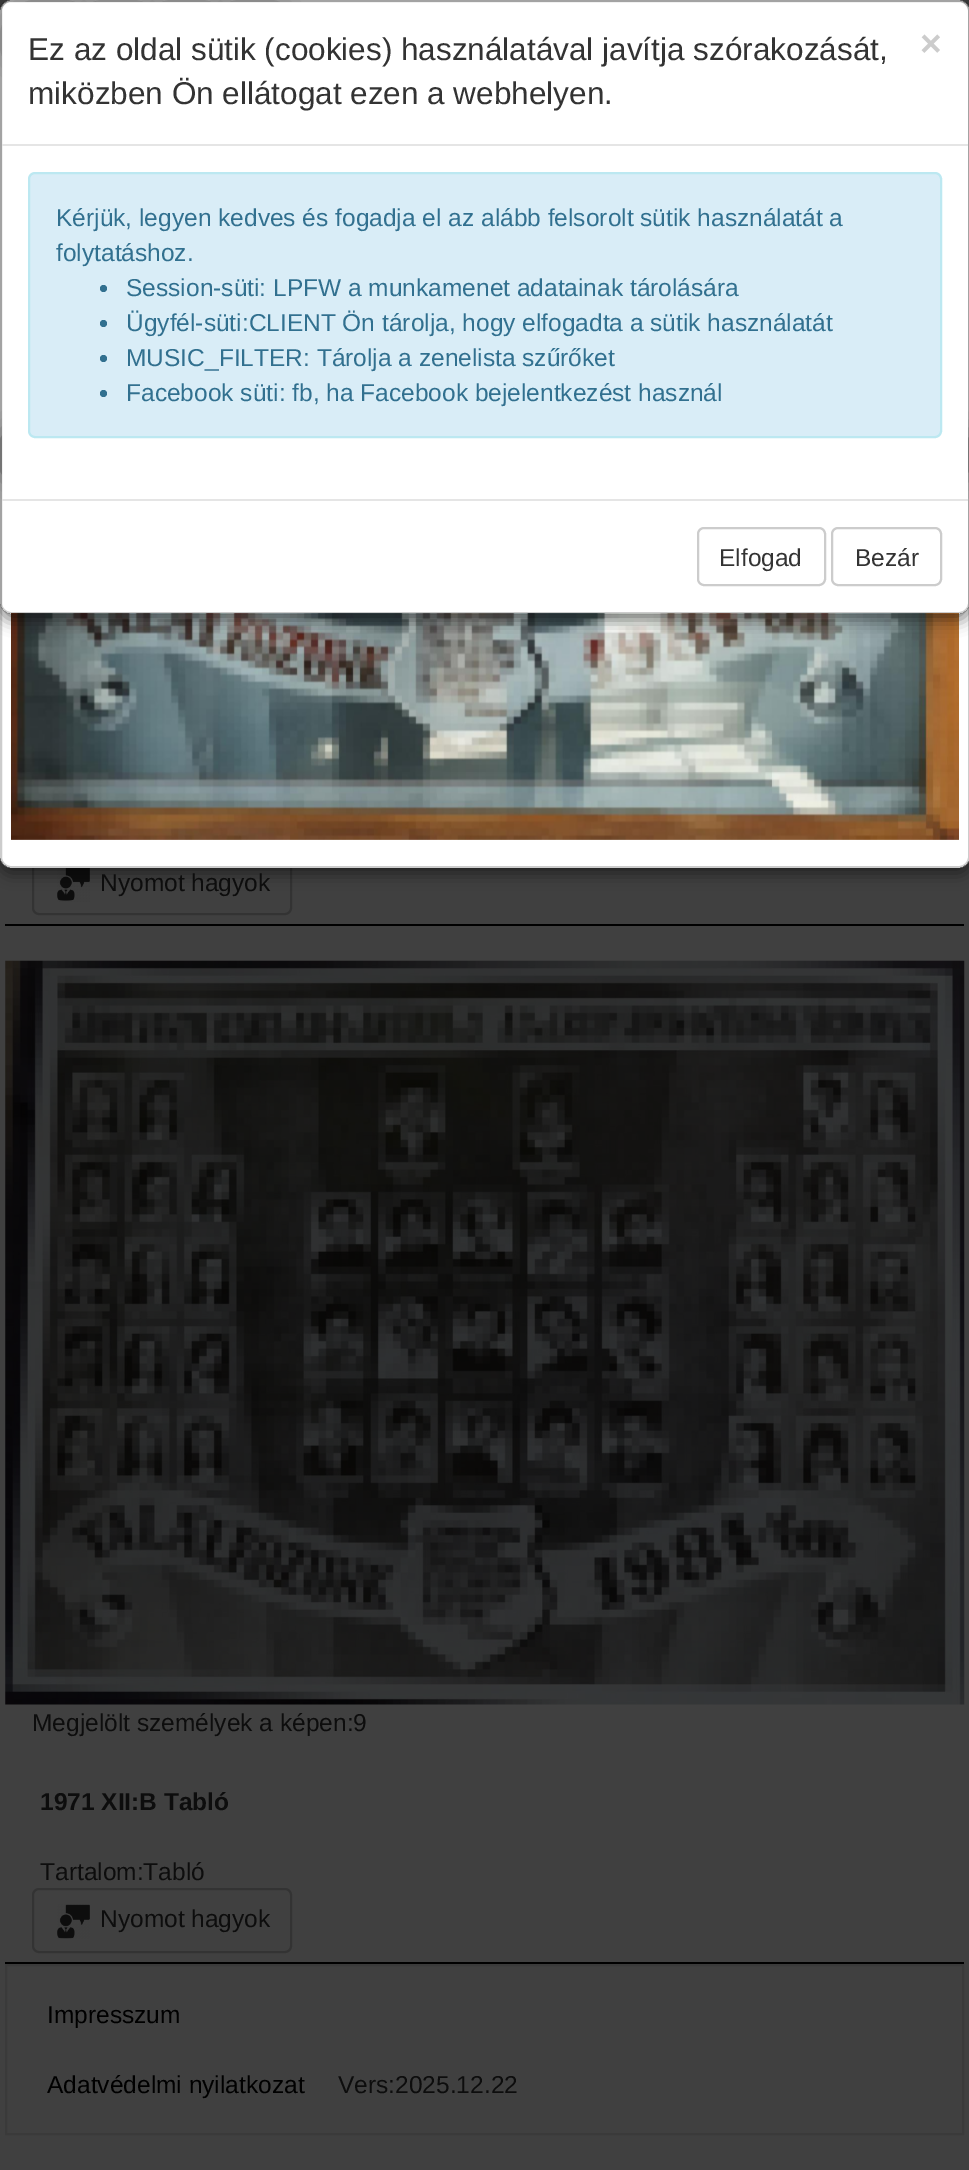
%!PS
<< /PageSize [969 2170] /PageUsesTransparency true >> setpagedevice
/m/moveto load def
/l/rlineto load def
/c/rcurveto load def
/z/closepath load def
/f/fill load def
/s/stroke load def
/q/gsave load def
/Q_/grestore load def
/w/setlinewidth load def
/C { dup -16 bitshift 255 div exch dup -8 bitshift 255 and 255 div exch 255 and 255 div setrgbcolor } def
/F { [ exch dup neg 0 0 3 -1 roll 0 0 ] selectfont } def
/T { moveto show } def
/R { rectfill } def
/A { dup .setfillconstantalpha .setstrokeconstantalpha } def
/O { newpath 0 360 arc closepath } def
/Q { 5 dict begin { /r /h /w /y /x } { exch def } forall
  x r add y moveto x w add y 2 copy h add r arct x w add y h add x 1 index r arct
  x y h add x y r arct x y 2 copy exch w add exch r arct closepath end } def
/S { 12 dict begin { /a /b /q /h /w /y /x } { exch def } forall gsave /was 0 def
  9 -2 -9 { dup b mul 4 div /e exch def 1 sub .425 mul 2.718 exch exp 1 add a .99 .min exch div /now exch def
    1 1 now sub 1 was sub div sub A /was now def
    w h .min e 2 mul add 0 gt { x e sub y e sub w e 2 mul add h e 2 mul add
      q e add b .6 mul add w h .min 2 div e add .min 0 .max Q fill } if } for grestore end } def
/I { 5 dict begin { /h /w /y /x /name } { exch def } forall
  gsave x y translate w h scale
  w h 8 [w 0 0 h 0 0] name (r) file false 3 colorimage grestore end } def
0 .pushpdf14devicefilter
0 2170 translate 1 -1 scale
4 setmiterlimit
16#404040 C
0 0 969 2170 R
16#333333 C
2 w
33 853 258 61 6 Q s
16#FFFFFF C
0 0 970 868 12 Q f
(2.rgb) 57 868 33 34 I
q
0 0 m 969 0 l 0 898 l -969 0 l z 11 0 m 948 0 l 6 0 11 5 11 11 c 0 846 l 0 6 -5 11 -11 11 c -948 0 l -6 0 -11 -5 -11 -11 c 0 -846 l 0 -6 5 -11 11 -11 c z eoclip newpath
16#000000 C
0 5 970 868 11 8 .5 S
Q_
0.2 A
16#000000 C
1 1 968 866 10 Q s
1 A
(1.rgb) 11 613 948 227 I
q
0 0 m 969 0 l 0 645 l -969 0 l z 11 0 m 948 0 l 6 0 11 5 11 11 c 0 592 l 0 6 -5 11 -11 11 c -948 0 l -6 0 -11 -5 -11 -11 c 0 -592 l 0 -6 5 -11 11 -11 c z eoclip newpath
0 5 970 615 11 8 .5 S
Q_
14 14 72 53 26.5 12 1 S
82 14 72 53 26.5 12 1 S
151 14 71 53 26.5 12 1 S
219 14 72 53 26.5 12 1 S
5 429 72 52 26 12 1 S
893 429 71 52 26 12 1 S
16#FFFFFF C
2 2 966 611 9 Q f
0.2 A
16#000000 C
1 1 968 612 10 Q s
1 A
16#E5E5E5 C
2 144 966 2 R
/LiberationSans-Regular 31.5 F
16#333333 C
(Ez az oldal sütik \(cookies\) használatával javítja szórakozását,) 28 60 T
(miközben Ön ellátogat ezen a webhelyen.) 28 104 T
/LiberationSans-Bold 37 F
16#CCCCCC C
(×) 920 56 T
16#D9EDF7 C
29 173 912 264 6 Q q f Q_
16#BCE8F1 C
s
/LiberationSans-Regular 24.5 F
16#31708F C
(Kérjük, legyen kedves és fogadja el az alább felsorolt sütik használatát a) 56 226 T
(folytatáshoz.) 56 261 T
103.5 288.5 3.5 O f
(Session-süti: LPFW a munkamenet adatainak tárolására) 126 296 T
103.5 323.5 3.5 O f
(Ügyfél-süti:CLIENT Ön tárolja, hogy elfogadta a sütik használatát) 126 331 T
103.5 358.5 3.5 O f
(MUSIC_FILTER: Tárolja a zenelista szűrőket) 126 366 T
103.5 393.5 3.5 O f
(Facebook süti: fb, ha Facebook bejelentkezést használ) 126 401 T
16#E5E5E5 C
2 499 966 2 R
16#CCCCCC C
698 528 127 57 6 Q s
16#333333 C
(Elfogad) 719 566 T
16#CCCCCC C
832 528 109 57 6 Q s
16#333333 C
(Bezár) 855 566 T
16#000000 C
5 924 959 2 R
16#0D0D0D C
(Nyomot hagyok) 100 891 T
16#000000 C
5 1962 959 2 R
(3.rgb) 5 960 960 745 I
16#0D0D0D C
(Megjelölt személyek a képen:9) 32 1731 T
/LiberationSans-Bold 24.5 F
(1971 XII:B Tabló) 40 1810 T
/LiberationSans-Regular 24.5 F
(Tartalom:Tabló) 40 1880 T
16#333333 C
33 1889 258 63 6 Q s
(4.rgb) 57 1904 33 35 I
16#0D0D0D C
(Nyomot hagyok) 100 1927 T
16#3A3A3A C
6 1965 957 169 rectstroke
16#000000 C
(Impresszum) 47 2023 T
(Adatvédelmi nyilatkozat) 47 2093 T
16#0D0D0D C
(Vers:2025.12.22) 338 2093 T
.poppdf14devicefilter showpage
